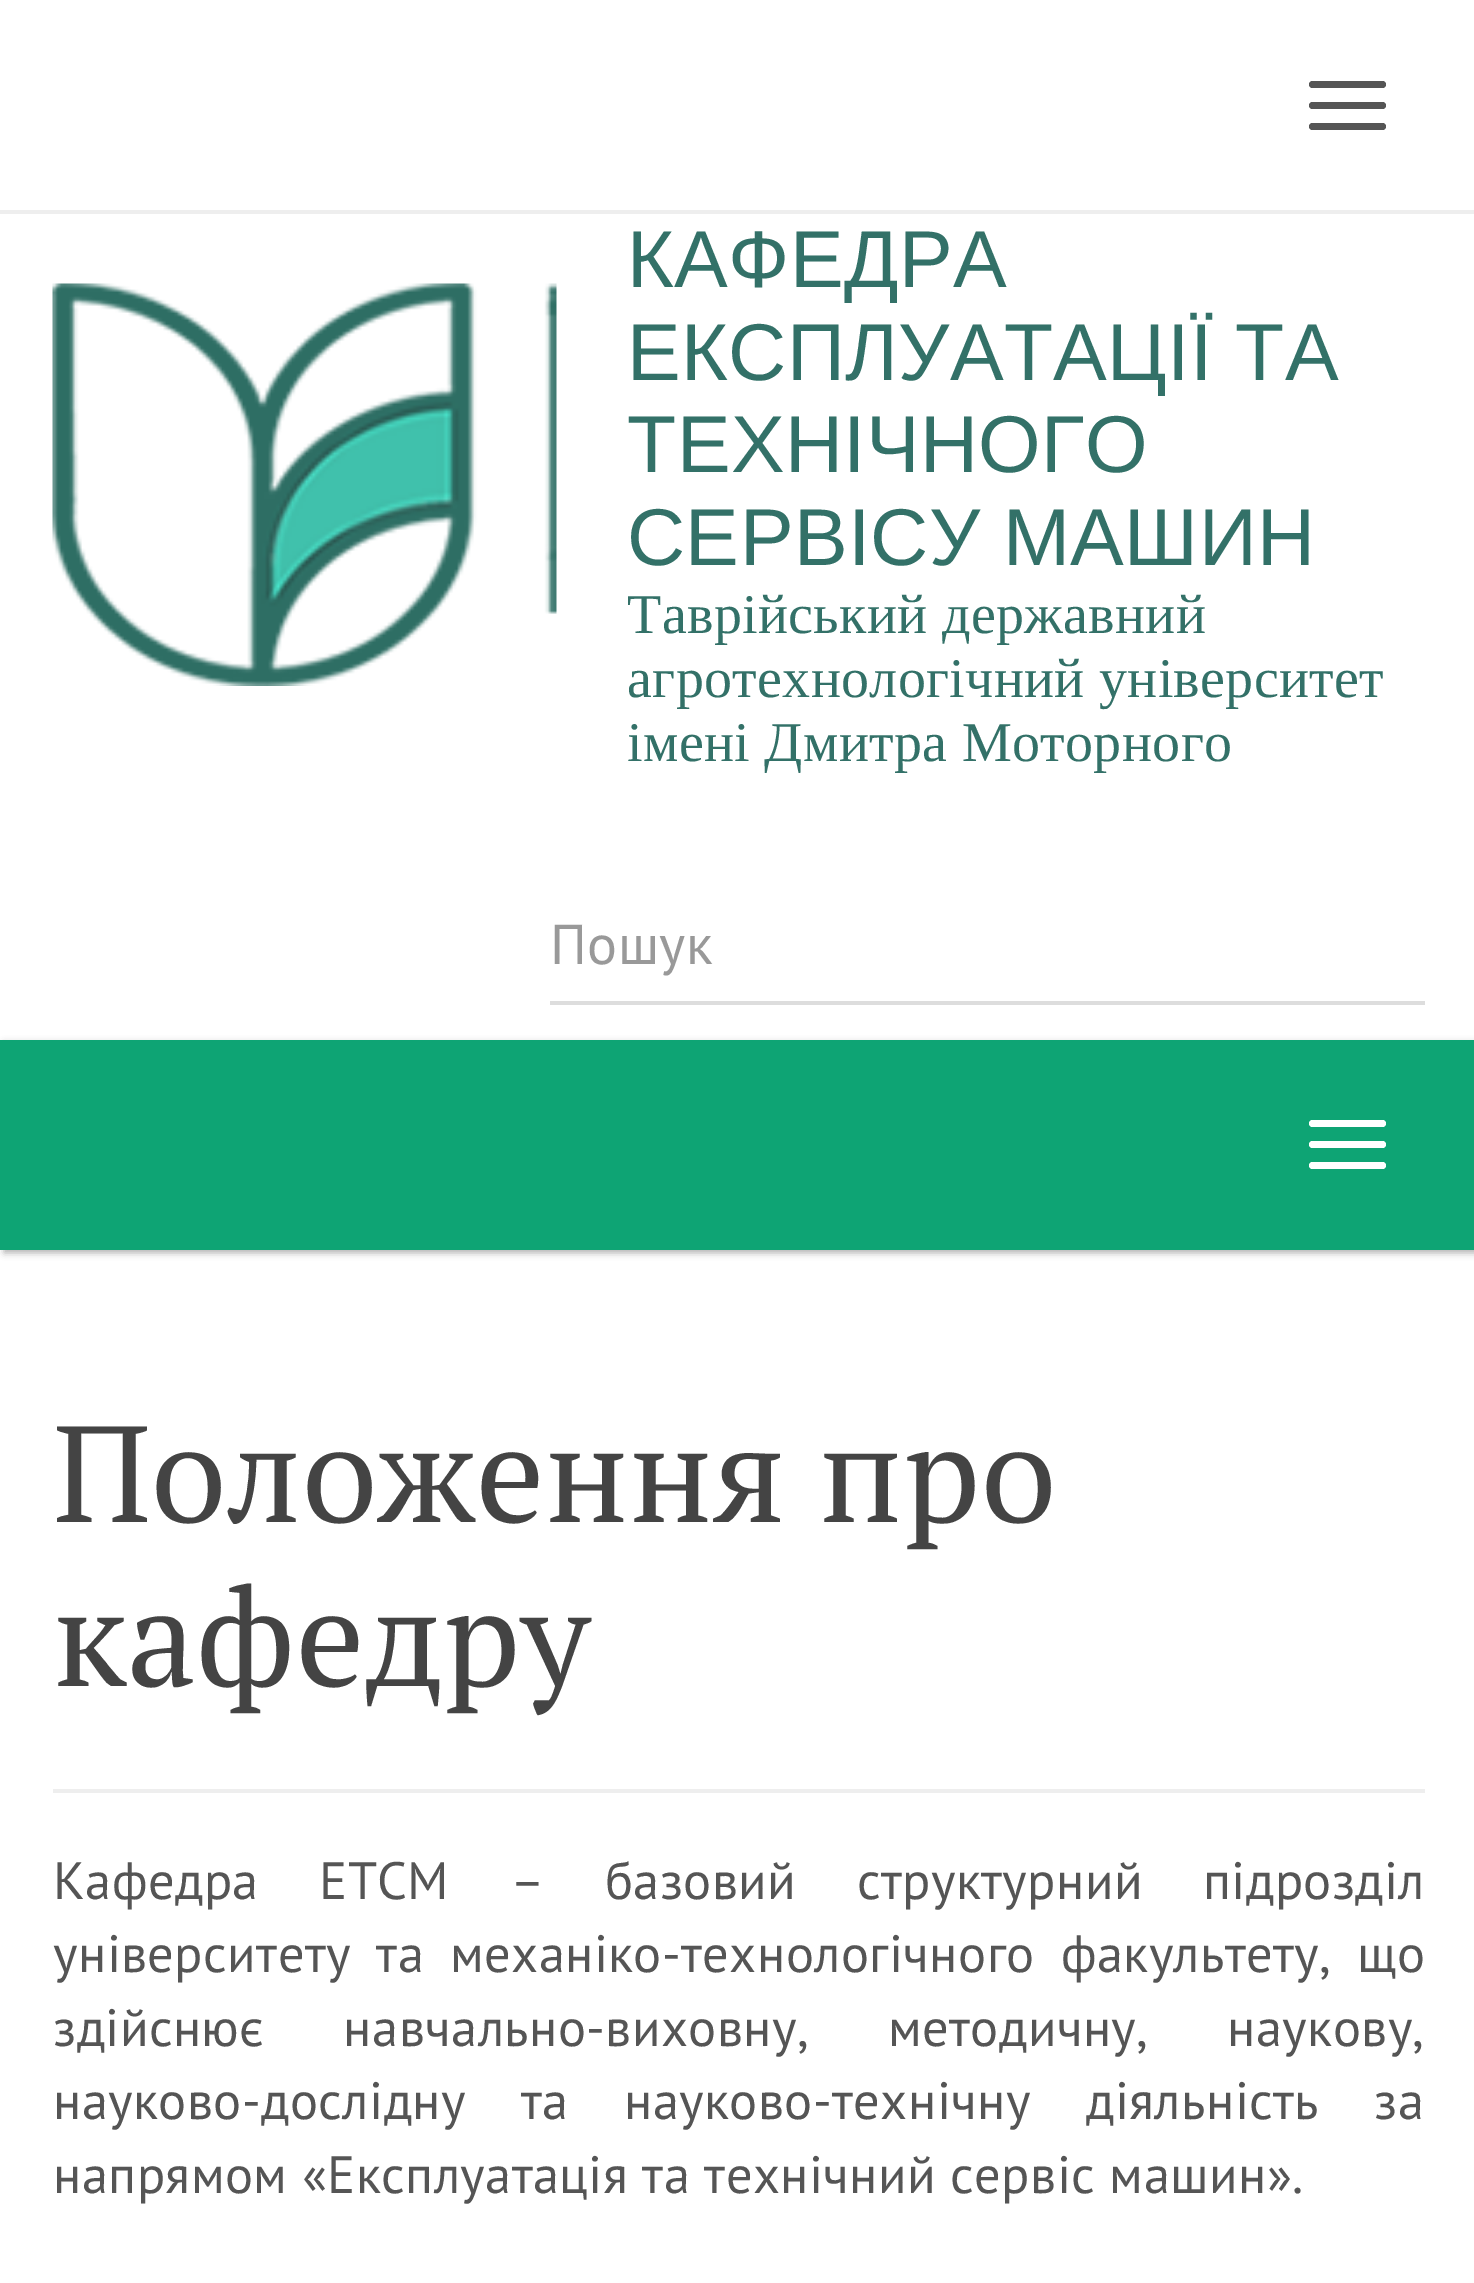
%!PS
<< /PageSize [1474 2283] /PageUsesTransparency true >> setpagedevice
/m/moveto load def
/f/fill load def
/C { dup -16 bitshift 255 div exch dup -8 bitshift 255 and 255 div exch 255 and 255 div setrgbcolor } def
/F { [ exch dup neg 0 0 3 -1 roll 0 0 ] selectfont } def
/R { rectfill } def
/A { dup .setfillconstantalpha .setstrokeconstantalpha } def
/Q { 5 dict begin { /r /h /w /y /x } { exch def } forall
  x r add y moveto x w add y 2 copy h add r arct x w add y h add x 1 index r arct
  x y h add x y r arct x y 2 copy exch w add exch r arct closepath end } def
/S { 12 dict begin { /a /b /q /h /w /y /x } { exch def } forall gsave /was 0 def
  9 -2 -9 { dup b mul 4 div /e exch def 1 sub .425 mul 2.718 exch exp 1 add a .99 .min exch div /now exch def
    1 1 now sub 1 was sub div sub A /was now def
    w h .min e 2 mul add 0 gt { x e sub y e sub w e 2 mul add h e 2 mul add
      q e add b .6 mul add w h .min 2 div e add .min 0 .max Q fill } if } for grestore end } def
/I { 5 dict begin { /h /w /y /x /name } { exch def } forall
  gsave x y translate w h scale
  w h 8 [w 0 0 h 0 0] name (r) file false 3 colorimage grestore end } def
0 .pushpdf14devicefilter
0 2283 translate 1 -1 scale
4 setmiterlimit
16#FFFFFF C
0 0 1474 2283 R
16#EEEEEE C
0 210 1474 4 R
16#555555 C
1309 81 77 7 3.5 Q f
1309 102 77 7 3.5 Q f
1309 123 77 7 3.5 Q f
(1.rgb) 52 283 505 403 I
/LiberationSans-Regular 80.5 F
16#337168 C
627 287 m .35 0 (КАФЕДРА) ashow
627 380 m .35 0 (ЕКСПЛУАТАЦІЇ ТА) ashow
627 472 m .35 0 (ТЕХНІЧНОГО) ashow
627 565 m .35 0 (СЕРВІСУ МАШИН) ashow
/LiberationSerif-Regular 56 F
627 633 m .35 0 (Таврійський державний) ashow
627 697 m .35 0 (агротехнологічний університет) ashow
627 761 m .35 0 (імені Дмитра Моторного) ashow
16#DDDDDD C
550 1001 875 4 R
/PTSans-Regular 56 F
16#999999 C
550 964 m .35 0 (Пошук) ashow
16#000000 C
4 1043 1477 210 0 3.5 .3 S
16#0EA474 C
0 1040 1474 210 R
16#FFFFFF C
1309 1120 77 7 3.5 Q f
1309 1141 77 7 3.5 Q f
1309 1162 77 7 3.5 Q f
16#EEEEEE C
53 1789 1372 4 R
/PTSerif-Regular 136.5 F
16#444444 C
53 1522 m .35 0 (Положення про) ashow
53 1686 m .35 0 (кафедру) ashow
/PTSans-Regular 52.5 F
16#555555 C
53 1899 m 46 0 32 .35 0 (Кафедра ЕТСМ – базовий структурний підрозділ) awidthshow
53 1972 m 11.5 0 32 .35 0 (університету та механіко-технологічного факультету, що) awidthshow
53 2046 m 64.5 0 32 .35 0 (здійснює навчально-виховну, методичну, наукову,) awidthshow
53 2119 m 41 0 32 .35 0 (науково-дослідну та науково-технічну діяльність за) awidthshow
53 2193 m .35 0 (напрямом «Експлуатація та технічний сервіс машин».) ashow
.poppdf14devicefilter showpage
